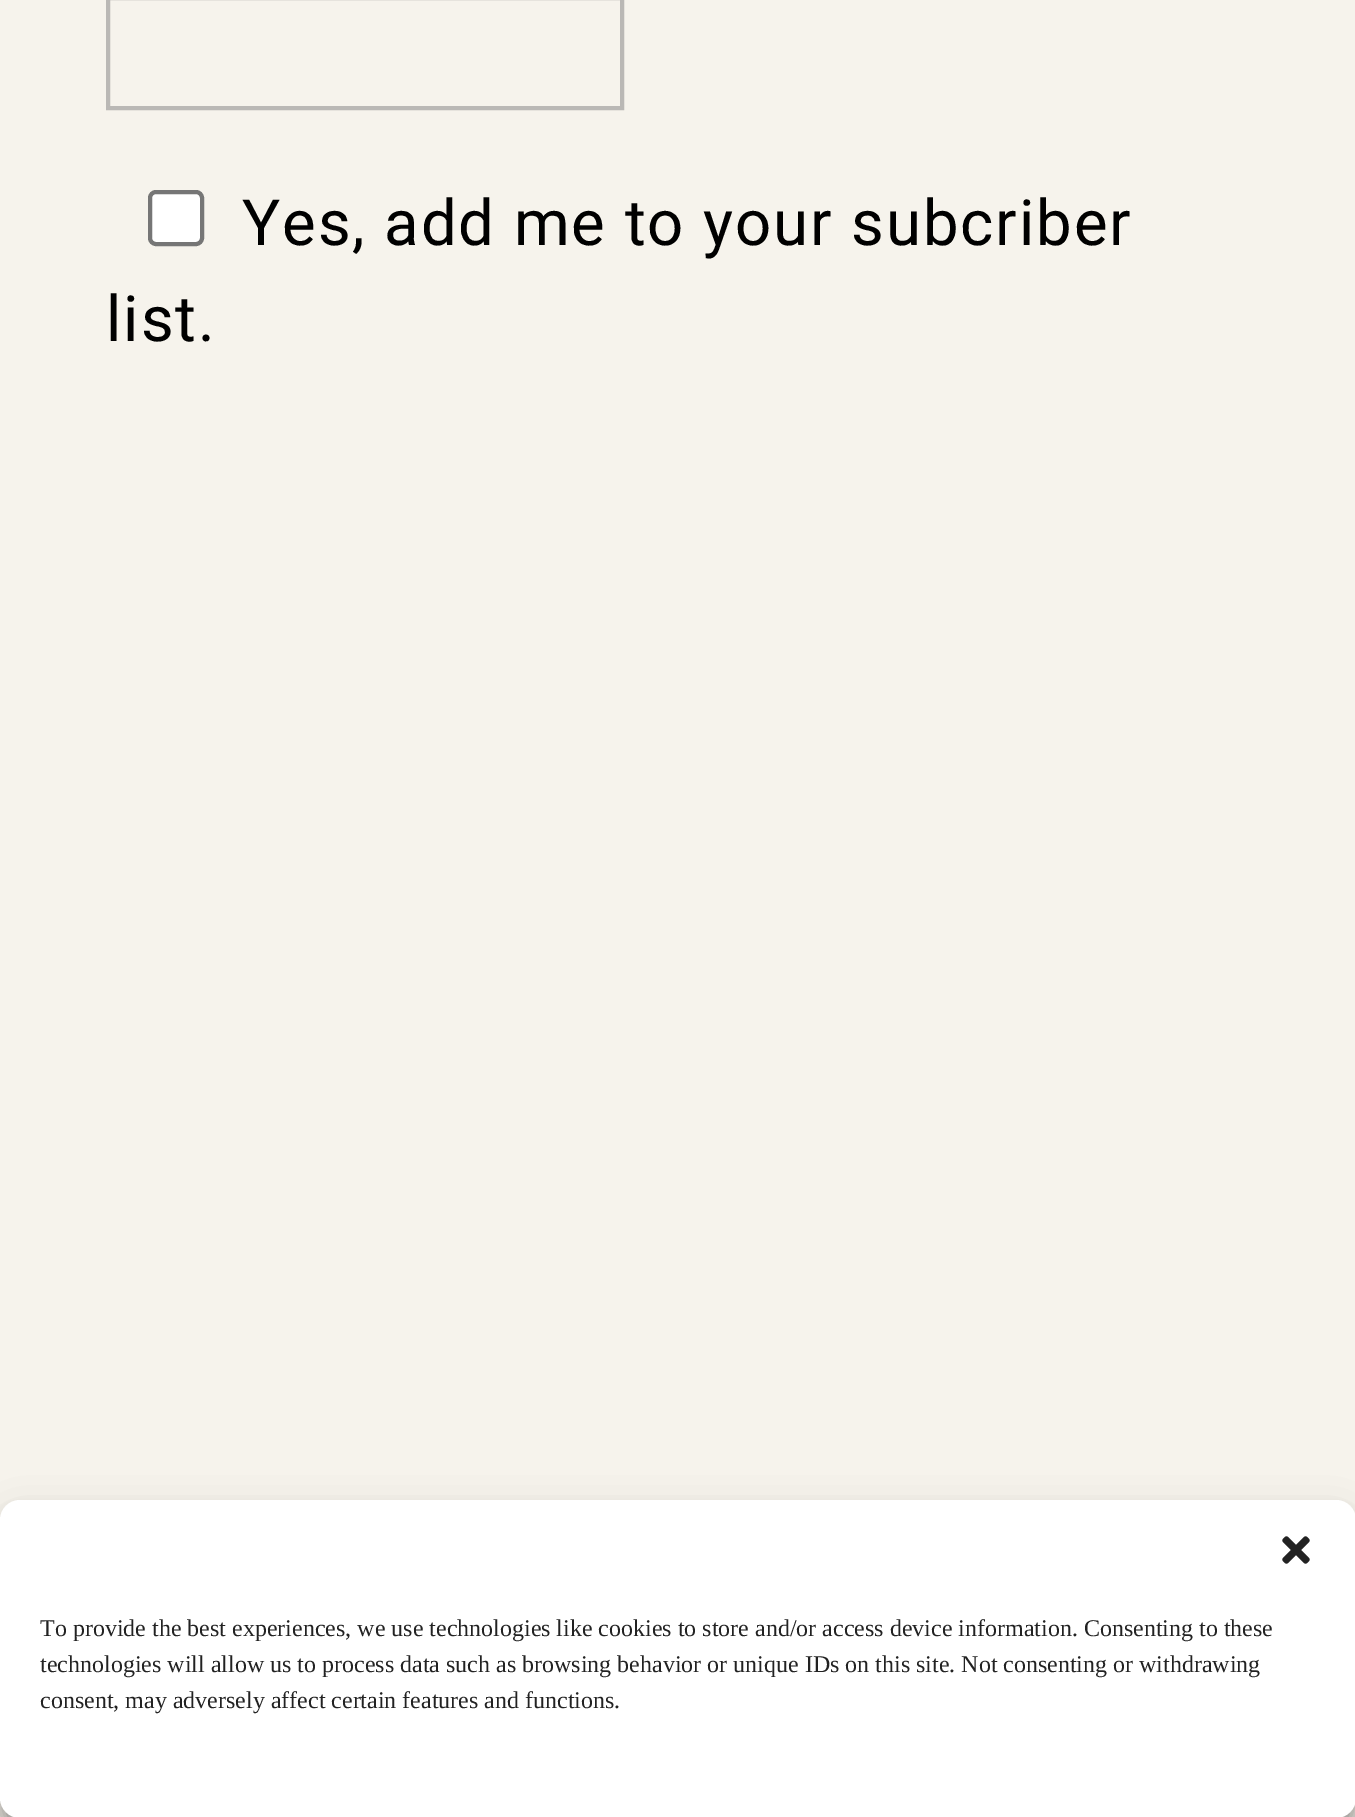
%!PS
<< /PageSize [1355 1817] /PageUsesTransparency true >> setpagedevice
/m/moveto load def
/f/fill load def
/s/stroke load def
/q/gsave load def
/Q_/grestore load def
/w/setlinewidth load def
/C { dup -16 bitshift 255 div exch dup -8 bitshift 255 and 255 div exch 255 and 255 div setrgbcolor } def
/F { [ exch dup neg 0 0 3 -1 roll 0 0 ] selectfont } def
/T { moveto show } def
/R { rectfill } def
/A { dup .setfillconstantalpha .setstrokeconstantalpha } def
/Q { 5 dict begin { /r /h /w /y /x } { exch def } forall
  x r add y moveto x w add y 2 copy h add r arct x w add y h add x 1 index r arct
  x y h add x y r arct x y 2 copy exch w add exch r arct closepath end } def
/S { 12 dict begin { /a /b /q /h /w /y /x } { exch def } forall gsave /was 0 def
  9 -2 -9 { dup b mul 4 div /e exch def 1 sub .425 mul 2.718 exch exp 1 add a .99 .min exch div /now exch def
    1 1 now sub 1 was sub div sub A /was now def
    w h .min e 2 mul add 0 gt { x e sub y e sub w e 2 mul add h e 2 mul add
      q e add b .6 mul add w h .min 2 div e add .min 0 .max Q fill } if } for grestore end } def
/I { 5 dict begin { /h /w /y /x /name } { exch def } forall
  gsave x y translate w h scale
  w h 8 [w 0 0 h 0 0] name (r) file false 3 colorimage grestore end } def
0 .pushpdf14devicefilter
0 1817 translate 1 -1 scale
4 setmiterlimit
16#F6F3EC C
0 0 1355 1817 R
16#BAB8B5 C
4 w
108 -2 514 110 rectstroke
16#FFFFFF C
150 192 52 52 6 Q q f Q_
16#767676 C
s
/Roboto-Regular 63.5 F
16#000000 C
242 245 m 1.9 0 (Yes, add me to your subcriber) ashow
106 341 m 1.9 0 (list.) ashow
0 1512 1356 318 20 6 .23 S
0 1520 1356 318 20 20 .19 S
16#FFFFFF C
0 1500 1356 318 20 Q f
(1.rgb) 1282 1536 28 28 I
/LiberationSerif-Regular 24 F
16#222222 C
(To provide the best experiences, we use technologies like cookies to store and/or access device information. Consenting to these) 40 1636 T
(technologies will allow us to process data such as browsing behavior or unique IDs on this site. Not consenting or withdrawing) 40 1672 T
(consent, may adversely affect certain features and functions.) 40 1708 T
.poppdf14devicefilter showpage
